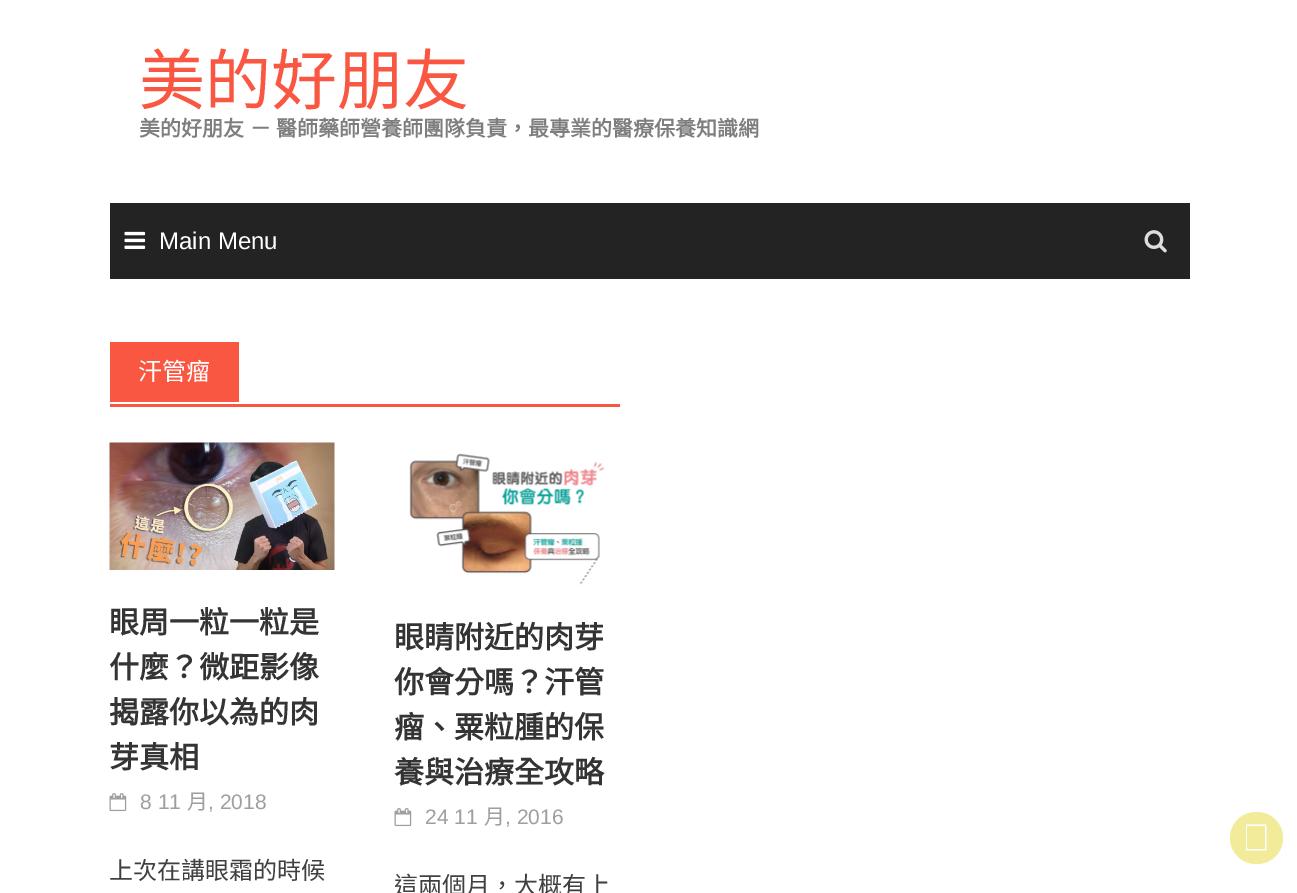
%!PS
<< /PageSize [1297 893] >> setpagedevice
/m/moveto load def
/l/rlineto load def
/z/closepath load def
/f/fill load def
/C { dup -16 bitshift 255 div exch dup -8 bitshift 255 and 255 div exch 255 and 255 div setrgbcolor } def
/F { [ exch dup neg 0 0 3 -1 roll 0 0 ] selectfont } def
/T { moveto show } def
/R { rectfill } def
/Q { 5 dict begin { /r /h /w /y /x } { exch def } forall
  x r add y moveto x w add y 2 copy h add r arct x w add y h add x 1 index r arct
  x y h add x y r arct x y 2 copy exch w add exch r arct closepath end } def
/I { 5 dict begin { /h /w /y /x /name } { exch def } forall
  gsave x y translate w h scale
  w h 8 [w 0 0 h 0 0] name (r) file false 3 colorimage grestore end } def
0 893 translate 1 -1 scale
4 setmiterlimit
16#FFFFFF C
0 0 1297 893 R
/NotoSansCJKTC-Regular 66 F
16#FA5742 C
(美的好朋友) 139 104 T
/NotoSansCJKTC-Bold 21 F
16#7E7E7E C
139 136 m 1 0 32 (美的好朋友 － 醫師藥師營養師團隊負責，最專業的醫療保養知識網) widthshow
16#232323 C
110 203 1080 76 R
(1.rgb) 124 231 22 18 I
/LiberationSans-Regular 24 F
16#FFFFFF C
(Main Menu) 159 249 T
(2.rgb) 1144 230 23 23 I
16#FA5742 C
110 404 510 3 R
110 342 129 60 R
/NotoSansCJKTC-Regular 24 F
16#FFFFFF C
(汗管瘤) 138 380 T
(3.rgb) 109 442 226 128 I
/NotoSansCJKTC-Bold 30 F
16#353434 C
(眼周一粒一粒是) 109 633 T
(什麼？微距影像) 109 678 T
(揭露你以為的肉) 109 723 T
(芽真相) 109 768 T
(4.rgb) 109 793 18 19 I
/LiberationSans-Regular 21 F
16#9F9F9F C
(8 11) 140 809 T
/NotoSansCJKTC-Regular 21 F
(月) 187 809 T
/LiberationSans-Regular 21 F
(, 2018) 208 809 T
/NotoSansCJKTC-Regular 24 F
16#404040 C
(上次在講眼霜的時候) 109 879 T
(5.rgb) 409 453 196 132 I
/NotoSansCJKTC-Bold 30 F
16#353434 C
(眼睛附近的肉芽) 394 648 T
(你會分嗎？汗管) 394 693 T
(瘤、粟粒腫的保) 394 738 T
(養與治療全攻略) 394 783 T
(4.rgb) 394 808 18 19 I
/LiberationSans-Regular 21 F
16#9F9F9F C
(24 11) 425 824 T
/NotoSansCJKTC-Regular 21 F
(月) 484 824 T
/LiberationSans-Regular 21 F
(, 2016) 505 824 T
/NotoSansCJKTC-Regular 24 F
16#404040 C
(這兩個月，大概有上) 394 894 T
16#F2EC9A C
1230 812 53 52 26 Q f
16#FFFFFF C
1246 824.5 m 20.5 0 l 0 26 l -20.5 0 l z 1247 826 m 0 23 l 18 0 l 0 -23 l z f
showpage
